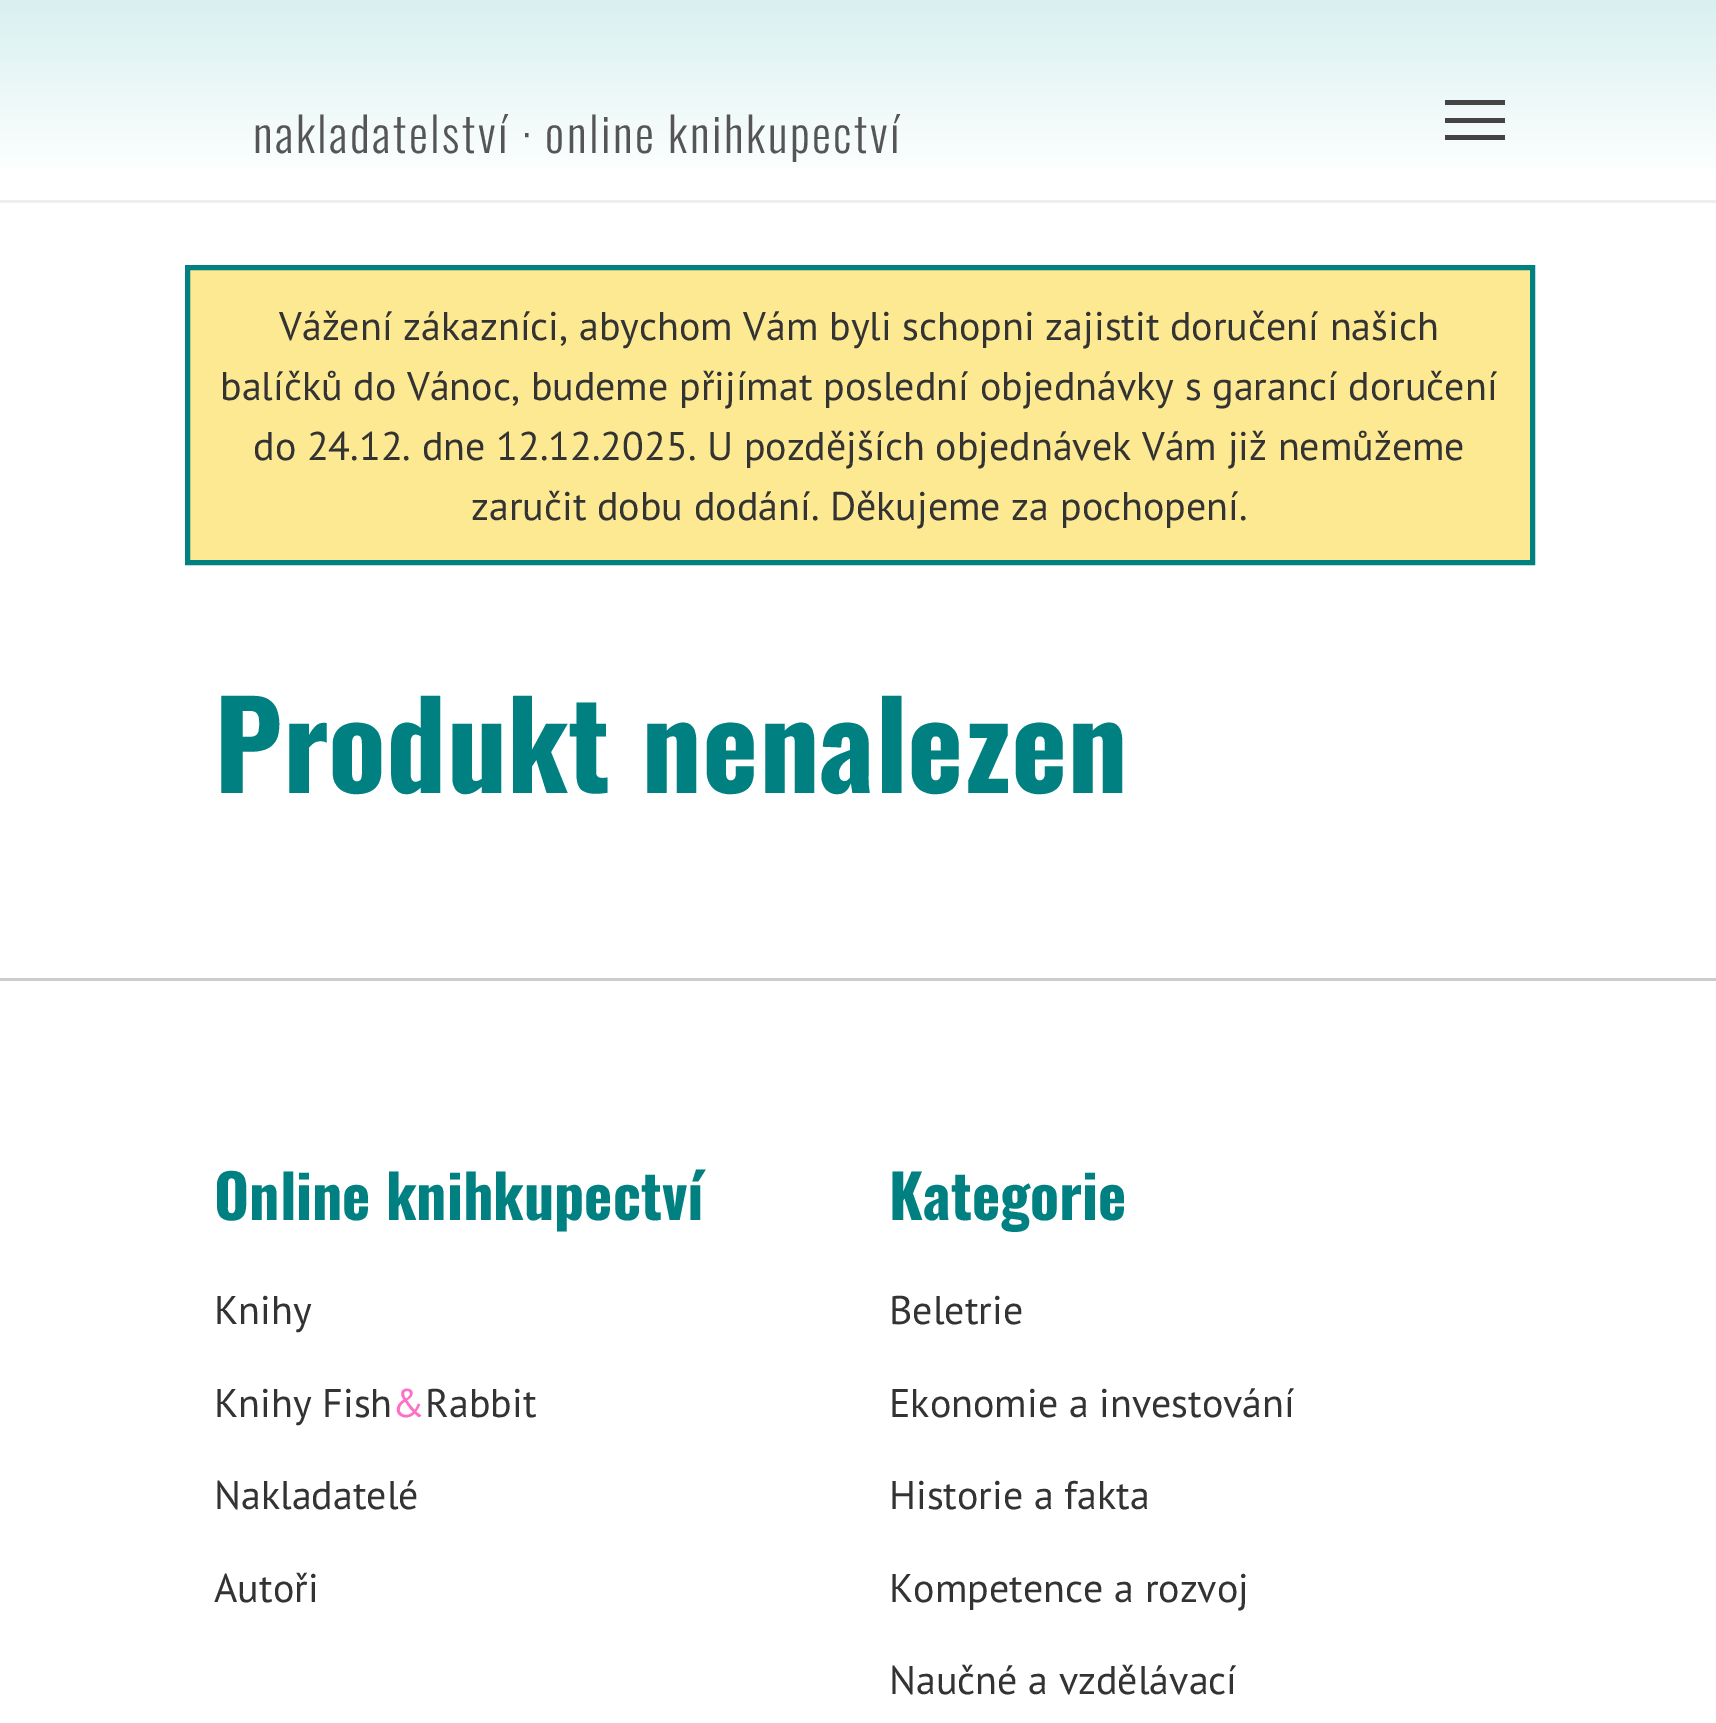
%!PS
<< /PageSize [1716 1723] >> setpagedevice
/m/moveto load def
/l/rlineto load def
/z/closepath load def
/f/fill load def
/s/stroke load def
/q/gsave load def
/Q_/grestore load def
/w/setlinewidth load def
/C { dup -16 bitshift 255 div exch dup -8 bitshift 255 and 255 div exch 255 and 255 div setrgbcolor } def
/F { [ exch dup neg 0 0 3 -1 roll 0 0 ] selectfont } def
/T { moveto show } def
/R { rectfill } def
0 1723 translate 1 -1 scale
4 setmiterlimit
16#FFFFFF C
0 0 1716 1723 R
q 0 0 m 1716 0 l 0 168 l -1716 0 l z clip newpath
<< /ShadingType 2 /ColorSpace /DeviceRGB /Coords [859 0 859 200] /Extend [true true] /Function << /FunctionType 3 /Domain [0 1] /Functions [<< /FunctionType 2 /Domain [0 1] /C0 [.851 .941 .941] /C1 [1 1 1] /N 1 >> << /FunctionType 2 /Domain [0 1] /C0 [1 1 1] /C1 [1 1 1] /N 1 >>] /Bounds [.9] /Encode [0 1 0 1] >> >> shfill Q_
/Oswald-Light 47.5 F
16#555555 C
253 153 m 2.5 0 (nakladatelství · online knihkupectví) ashow
16#444444 C
1445 100 60 5 R
1445 118 60 5 R
1445 135 60 5 R
16#EEEEEE C
0 200 1716 3 R
16#FDE992 C
187.5 267.5 m 1345 0 l 0 295 l -1345 0 l z q f Q_
16#008080 C
5 w
s
/PTSans-Regular 40 F
16#333333 C
(Vážení zákazníci, abychom Vám byli schopni zajistit doručení našich) 279 340 T
(balíčků do Vánoc, budeme přijímat poslední objednávky s garancí doručení) 220 400 T
(do 24.12. dne 12.12.2025. U pozdějších objednávek Vám již nemůžeme) 253 460 T
(zaručit dobu dodání. Děkujeme za pochopení.) 471 520 T
/Oswald-Bold 120 F
16#008080 C
(Produkt nenalezen) 214 793 T
16#CCCCCC C
0 978 1716 3 R
/Oswald-Bold 60 F
16#008080 C
(Online knihkupectví) 214 1220 T
/PTSans-Regular 40 F
16#333333 C
(Knihy) 214 1324 T
(Knihy Fish) 214 1417 T
16#FF6EC7 C
(&) 392 1417 T
16#333333 C
(Rabbit) 425 1417 T
(Nakladatelé) 214 1509 T
(Autoři) 214 1602 T
/Oswald-Bold 60 F
16#008080 C
(Kategorie) 889 1220 T
/PTSans-Regular 40 F
16#333333 C
(Beletrie) 889 1324 T
(Ekonomie a investování) 889 1417 T
(Historie a fakta) 889 1509 T
(Kompetence a rozvoj) 889 1602 T
(Naučné a vzdělávací) 889 1694 T
showpage
